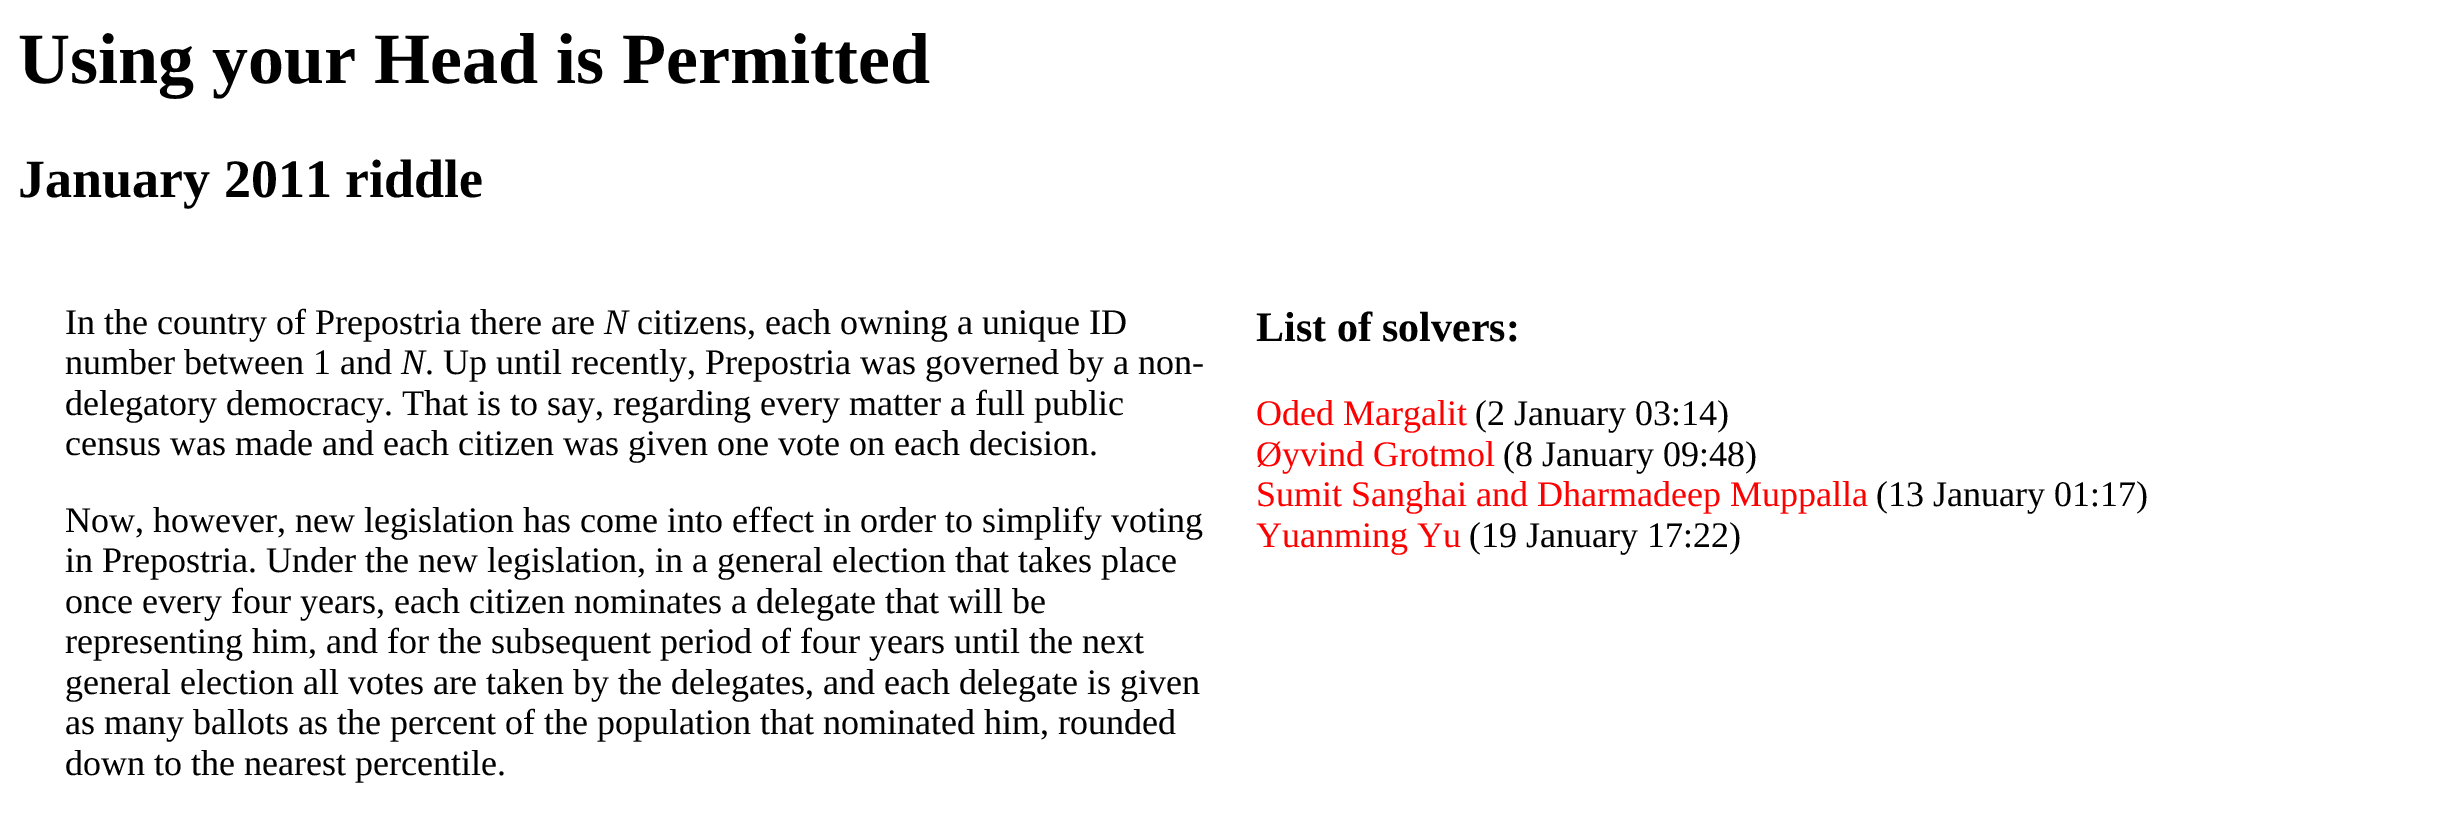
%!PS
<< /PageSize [2460 829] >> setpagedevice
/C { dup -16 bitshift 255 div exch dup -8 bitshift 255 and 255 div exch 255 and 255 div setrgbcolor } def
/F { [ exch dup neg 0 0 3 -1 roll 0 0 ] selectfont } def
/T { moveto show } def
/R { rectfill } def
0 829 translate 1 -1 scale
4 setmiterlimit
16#FFFFFF C
0 0 2460 829 R
/LiberationSerif-Bold 72 F
16#000000 C
(Using your Head is Permitted) 18 83 T
/LiberationSerif-Bold 54 F
(January 2011 riddle) 18 197 T
/LiberationSerif-Regular 36 F
(In the country of Prepostria there are) 65 334 T
/LiberationSerif-Italic 36 F
(N) 604 334 T
/LiberationSerif-Regular 36 F
(citizens, each owning a unique ID) 637 334 T
(number between 1 and) 65 374 T
/LiberationSerif-Italic 36 F
(N) 401 374 T
/LiberationSerif-Regular 36 F
(. Up until recently, Prepostria was governed by a non-) 425 374 T
(delegatory democracy. That is to say, regarding every matter a full public) 65 415 T
(census was made and each citizen was given one vote on each decision.) 65 455 T
(Now, however, new legislation has come into effect in order to simplify voting) 65 532 T
(in Prepostria. Under the new legislation, in a general election that takes place) 65 572 T
(once every four years, each citizen nominates a delegate that will be) 65 613 T
(representing him, and for the subsequent period of four years until the next) 65 653 T
(general election all votes are taken by the delegates, and each delegate is given) 65 694 T
(as many ballots as the percent of the population that nominated him, rounded) 65 734 T
(down to the nearest percentile.) 65 775 T
/LiberationSerif-Bold 42 F
(List of solvers:) 1256 341 T
/LiberationSerif-Regular 36 F
16#FF0000 C
(Oded Margalit) 1256 425 T
16#000000 C
(\(2 January 03:14\)) 1475 425 T
16#FF0000 C
(Øyvind Grotmol) 1256 466 T
16#000000 C
(\(8 January 09:48\)) 1503 466 T
16#FF0000 C
(Sumit Sanghai and Dharmadeep Muppalla) 1256 506 T
16#000000 C
(\(13 January 01:17\)) 1876 506 T
16#FF0000 C
(Yuanming Yu) 1256 547 T
16#000000 C
(\(19 January 17:22\)) 1469 547 T
showpage
